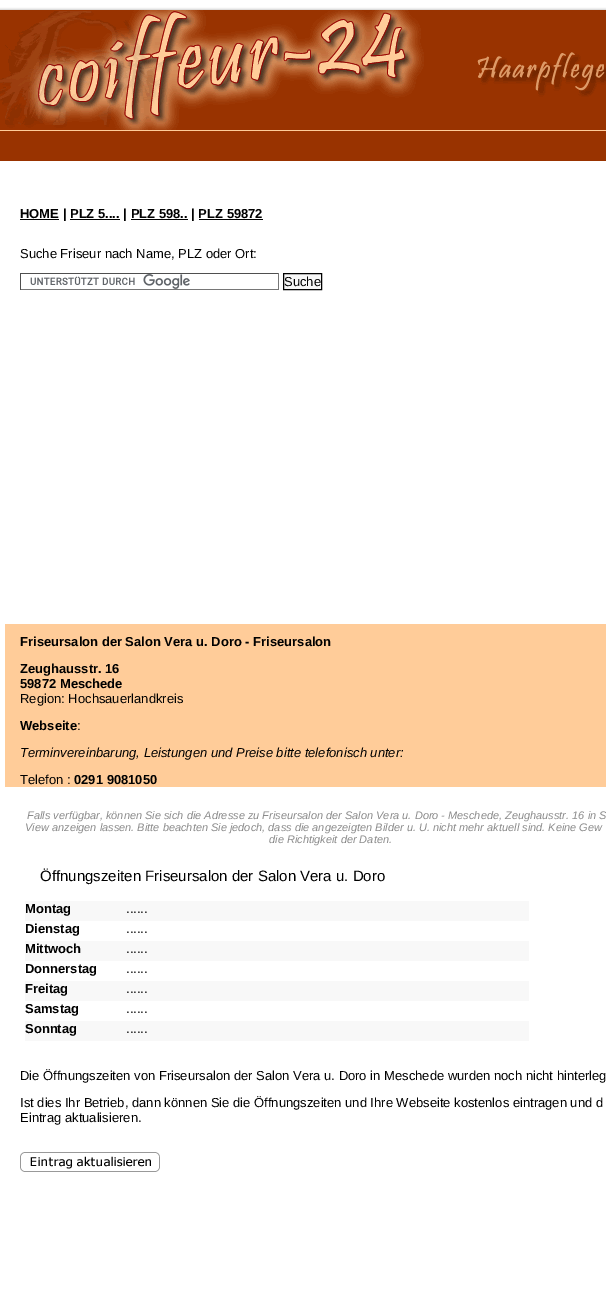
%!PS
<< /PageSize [606 1309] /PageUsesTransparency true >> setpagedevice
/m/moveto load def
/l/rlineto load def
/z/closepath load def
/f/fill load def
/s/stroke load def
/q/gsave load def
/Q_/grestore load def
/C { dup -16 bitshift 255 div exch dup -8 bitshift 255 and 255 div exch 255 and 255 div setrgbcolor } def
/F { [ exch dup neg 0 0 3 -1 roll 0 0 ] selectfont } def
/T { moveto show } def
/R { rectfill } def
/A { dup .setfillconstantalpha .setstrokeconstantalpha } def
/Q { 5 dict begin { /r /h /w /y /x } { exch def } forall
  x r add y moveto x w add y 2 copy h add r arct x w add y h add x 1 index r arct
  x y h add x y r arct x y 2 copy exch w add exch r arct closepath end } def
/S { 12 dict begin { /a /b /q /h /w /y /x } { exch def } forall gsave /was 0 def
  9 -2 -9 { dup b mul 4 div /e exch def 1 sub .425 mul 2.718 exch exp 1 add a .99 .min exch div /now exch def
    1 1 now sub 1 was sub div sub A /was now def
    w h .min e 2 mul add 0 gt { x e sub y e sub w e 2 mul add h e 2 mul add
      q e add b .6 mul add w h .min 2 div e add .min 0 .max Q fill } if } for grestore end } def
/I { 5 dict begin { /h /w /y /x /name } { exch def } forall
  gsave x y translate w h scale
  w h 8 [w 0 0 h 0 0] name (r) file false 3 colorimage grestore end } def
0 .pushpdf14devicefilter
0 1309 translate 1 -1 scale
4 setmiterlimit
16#FFFFFF C
0 0 606 1309 R
q
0 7 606 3 rectclip
16#CCCCCC C
-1 9 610 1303 0 1 1 S
Q_
(1.rgb) 0 10 606 121 I
16#993300 C
0 131 606 30 R
16#000000 C
20 219 39 1 R
/LiberationSans-Bold 13 F
(HOME | PLZ 5.... | PLZ 598.. | PLZ 59872) 20 218 T
70 219 50 1 R
131 219 57 1 R
199 219 64 1 R
/LiberationSans-Regular 13 F
(Suche Friseur nach Name, PLZ oder Ort:) 20 258 T
(2.rgb) 30 274 160 15 I
16#4F4F4F C
20 273 259 1 R
16#767676 C
278 273 1 17 R
20 289 259 1 R
16#4F4F4F C
20 273 1 17 R
16#F7F7F7 C
283.5 273.5 m 38 0 l 0 16 l -38 0 l z q f Q_
16#000000 C
s
(Suche) 284 286 T
16#FFCC99 C
5 624 601 163 R
/LiberationSans-Bold 13 F
16#000000 C
(Friseursalon der Salon Vera u. Doro - Friseursalon) 20 646 T
(Zeughausstr. 16) 20 673 T
(59872 Meschede) 20 688 T
/LiberationSans-Regular 13 F
(Region: Hochsauerlandkreis) 20 703 T
/LiberationSans-Bold 13 F
(Webseite) 20 730 T
/LiberationSans-Regular 13 F
(:) 77 730 T
/LiberationSans-Italic 13 F
(Terminvereinbarung, Leistungen und Preise bitte telefonisch unter:) 20 757 T
/LiberationSans-Regular 13 F
(Telefon :) 20 784 T
/LiberationSans-Bold 13 F
(0291 9081050) 74 784 T
/LiberationSans-Italic 11 F
16#8B8B8B C
(Falls verfügbar, können Sie sich die Adresse zu Friseursalon der Salon Vera u. Doro - Meschede, Zeughausstr. 16 in S) 27 819 T
(View anzeigen lassen. Bitte beachten Sie jedoch, dass die angezeigten Bilder u. U. nicht mehr aktuell sind. Keine Gew) 25 831 T
(die Richtigkeit der Daten.) 269 843 T
/LiberationSans-Regular 15 F
16#000000 C
(Öffnungszeiten Friseursalon der Salon Vera u. Doro) 40 881 T
16#F8F8F8 C
25 901 504 20 R
/LiberationSans-Bold 13 F
16#000000 C
(Montag) 25 913 T
/LiberationSans-Regular 13 F
(......) 126 913 T
/LiberationSans-Bold 13 F
(Dienstag) 25 933 T
/LiberationSans-Regular 13 F
(......) 126 933 T
16#F8F8F8 C
25 941 504 20 R
/LiberationSans-Bold 13 F
16#000000 C
(Mittwoch) 25 953 T
/LiberationSans-Regular 13 F
(......) 126 953 T
/LiberationSans-Bold 13 F
(Donnerstag) 25 973 T
/LiberationSans-Regular 13 F
(......) 126 973 T
16#F8F8F8 C
25 981 504 20 R
/LiberationSans-Bold 13 F
16#000000 C
(Freitag) 25 993 T
/LiberationSans-Regular 13 F
(......) 126 993 T
/LiberationSans-Bold 13 F
(Samstag) 25 1013 T
/LiberationSans-Regular 13 F
(......) 126 1013 T
16#F8F8F8 C
25 1021 504 20 R
/LiberationSans-Bold 13 F
16#000000 C
(Sonntag) 25 1033 T
/LiberationSans-Regular 13 F
(......) 126 1033 T
(Die Öffnungszeiten von Friseursalon der Salon Vera u. Doro in Meschede wurden noch nicht hinterleg) 20 1080 T
(Ist dies Ihr Betrieb, dann können Sie die Öffnungszeiten und Ihre Webseite kostenlos eintragen und d) 20 1107 T
(Eintrag aktualisieren.) 20 1122 T
(3.rgb) 20 1152 140 20 I
.poppdf14devicefilter showpage
